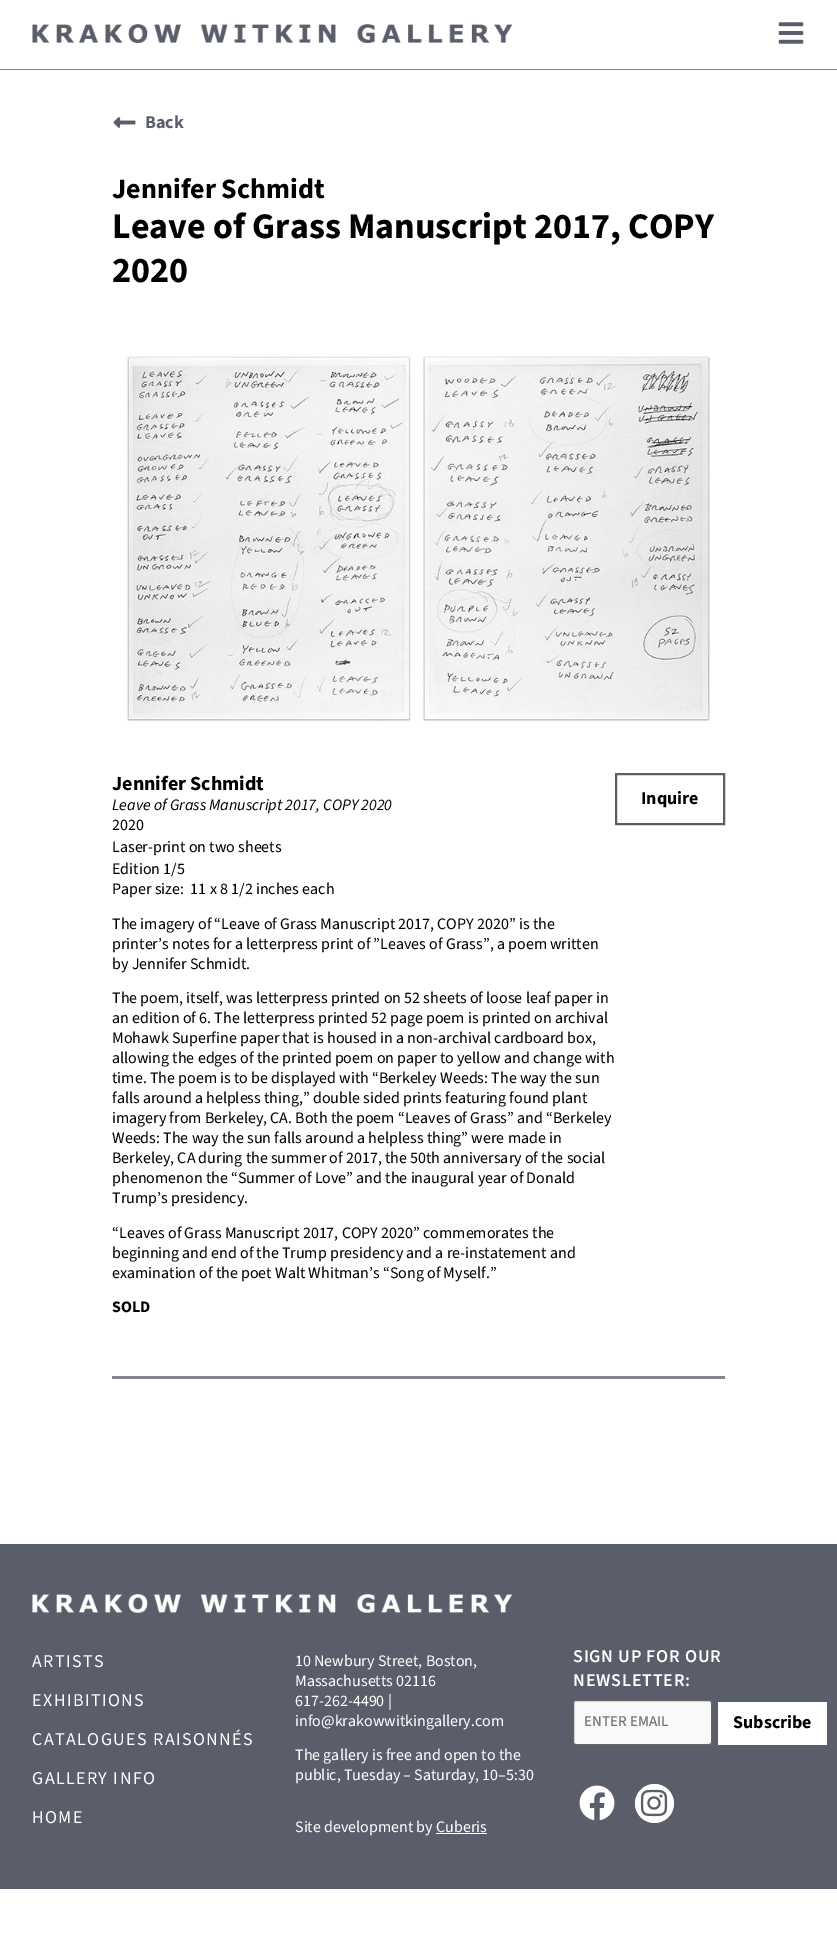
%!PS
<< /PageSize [837 1935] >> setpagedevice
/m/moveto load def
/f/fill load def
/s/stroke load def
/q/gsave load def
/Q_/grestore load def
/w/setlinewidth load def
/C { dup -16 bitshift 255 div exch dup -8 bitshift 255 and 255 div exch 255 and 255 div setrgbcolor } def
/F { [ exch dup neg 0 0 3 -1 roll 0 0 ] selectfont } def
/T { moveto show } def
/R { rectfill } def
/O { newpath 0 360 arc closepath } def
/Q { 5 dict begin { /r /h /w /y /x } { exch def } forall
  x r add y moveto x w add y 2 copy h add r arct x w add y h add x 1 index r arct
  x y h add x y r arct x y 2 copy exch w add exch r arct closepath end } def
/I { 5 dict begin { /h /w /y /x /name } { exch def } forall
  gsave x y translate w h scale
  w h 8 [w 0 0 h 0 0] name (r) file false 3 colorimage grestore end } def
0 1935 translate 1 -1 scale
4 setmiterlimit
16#FFFFFF C
0 0 837 1935 R
16#83868F C
0 69 837 1 R
(1.rgb) 32 24 480 19 I
(2.rgb) 778 22 26 22 I
(3.rgb) 113 117 23 11 I
/SourceSans3-Bold 18 F
16#5A5E6A C
(Back) 145 128 T
/SourceSans3-Bold 28 F
16#000000 C
(Jennifer Schmidt) 112 198 T
/SourceSans3-Bold 36 F
(Leave of Grass Manuscript 2017, COPY) 112 238 T
(2020) 112 282 T
(4.rgb) 124 353 586 368 I
/SourceSans3-Bold 20 F
(Jennifer Schmidt) 112 790 T
/SourceSans3-Italic 16 F
(Leave of Grass Manuscript 2017, COPY 2020) 112 810 T
/SourceSans3-Regular 16 F
(2020) 112 830 T
(Laser-print on two sheets) 112 852 T
(Edition 1/5) 112 874 T
(Paper size:  11 x 8 1/2 inches each) 112 894 T
(The imagery of “Leave of Grass Manuscript 2017, COPY 2020” is the) 112 929 T
(printer’s notes for a letterpress print of ”Leaves of Grass”, a poem written) 112 949 T
(by Jennifer Schmidt.) 112 969 T
(The poem, itself, was letterpress printed on 52 sheets of loose leaf paper in) 112 1003 T
(an edition of 6. The letterpress printed 52 page poem is printed on archival) 112 1023 T
(Mohawk Superfine paper that is housed in a non-archival cardboard box,) 112 1043 T
(allowing the edges of the printed poem on paper to yellow and change with) 112 1063 T
(time. The poem is to be displayed with “Berkeley Weeds: The way the sun) 112 1083 T
(falls around a helpless thing,” double sided prints featuring found plant) 112 1103 T
(imagery from Berkeley, CA. Both the poem “Leaves of Grass” and “Berkeley) 112 1123 T
(Weeds: The way the sun falls around a helpless thing” were made in) 112 1143 T
(Berkeley, CA during the summer of 2017, the 50th anniversary of the social) 112 1163 T
(phenomenon the “Summer of Love” and the inaugural year of Donald) 112 1183 T
(Trump’s presidency.) 112 1203 T
(“Leaves of Grass Manuscript 2017, COPY 2020” commemorates the) 112 1238 T
(beginning and end of the Trump presidency and a re-instatement and) 112 1258 T
(examination of the poet Walt Whitman’s “Song of Myself.”) 112 1278 T
/SourceSans3-Bold 16 F
(SOLD) 112 1312 T
16#5A5E6A C
2 w
616 774 108 50 rectstroke
/SourceSans3-Bold 18 F
16#000000 C
(Inquire) 641 804 T
16#83868F C
112 1376 613 3 R
16#5A5E6A C
0 1544 837 345 R
(5.rgb) 32 1594 480 19 I
/SourceSans3-Regular 18 F
16#FFFFFF C
32 1667 m 1.4 0 (ARTISTS) ashow
32 1706 m 1.4 0 (EXHIBITIONS) ashow
32 1745 m 1.4 0 (CATALOGUES RAISONNÉS) ashow
32 1784 m 1.4 0 (GALLERY INFO) ashow
32 1823 m 1.4 0 (HOME) ashow
/SourceSans3-Regular 16 F
(10 Newbury Street, Boston,) 295 1666 T
(Massachusetts 02116) 295 1686 T
(617-262-4490 |) 295 1706 T
(info@krakowwitkingallery.com) 295 1726 T
(The gallery is free and open to the) 295 1760 T
(public, Tuesday – Saturday, 10–5:30) 295 1780 T
(Site development by Cuberis) 295 1832 T
436 1833 51 1 R
/SourceSans3-SemiBold 18 F
573 1662 m .75 0 (SIGN UP FOR OUR) ashow
573 1686 m .75 0 (NEWSLETTER:) ashow
16#F9F9F9 C
573.5 1700.5 138 44 2.5 Q q f Q_
16#666666 C
1 w
s
/SourceSans3-Medium 15 F
16#757575 C
(ENTER EMAIL) 584 1726 T
16#FFFFFF C
718 1702 109 43 R
/SourceSans3-Bold 18 F
16#000000 C
(Subscribe) 733 1728 T
(6.rgb) 579 1785 36 36 I
16#FFFFFF C
654.5 1803.5 19.5 O f
(7.rgb) 640 1789 28 28 I
showpage
